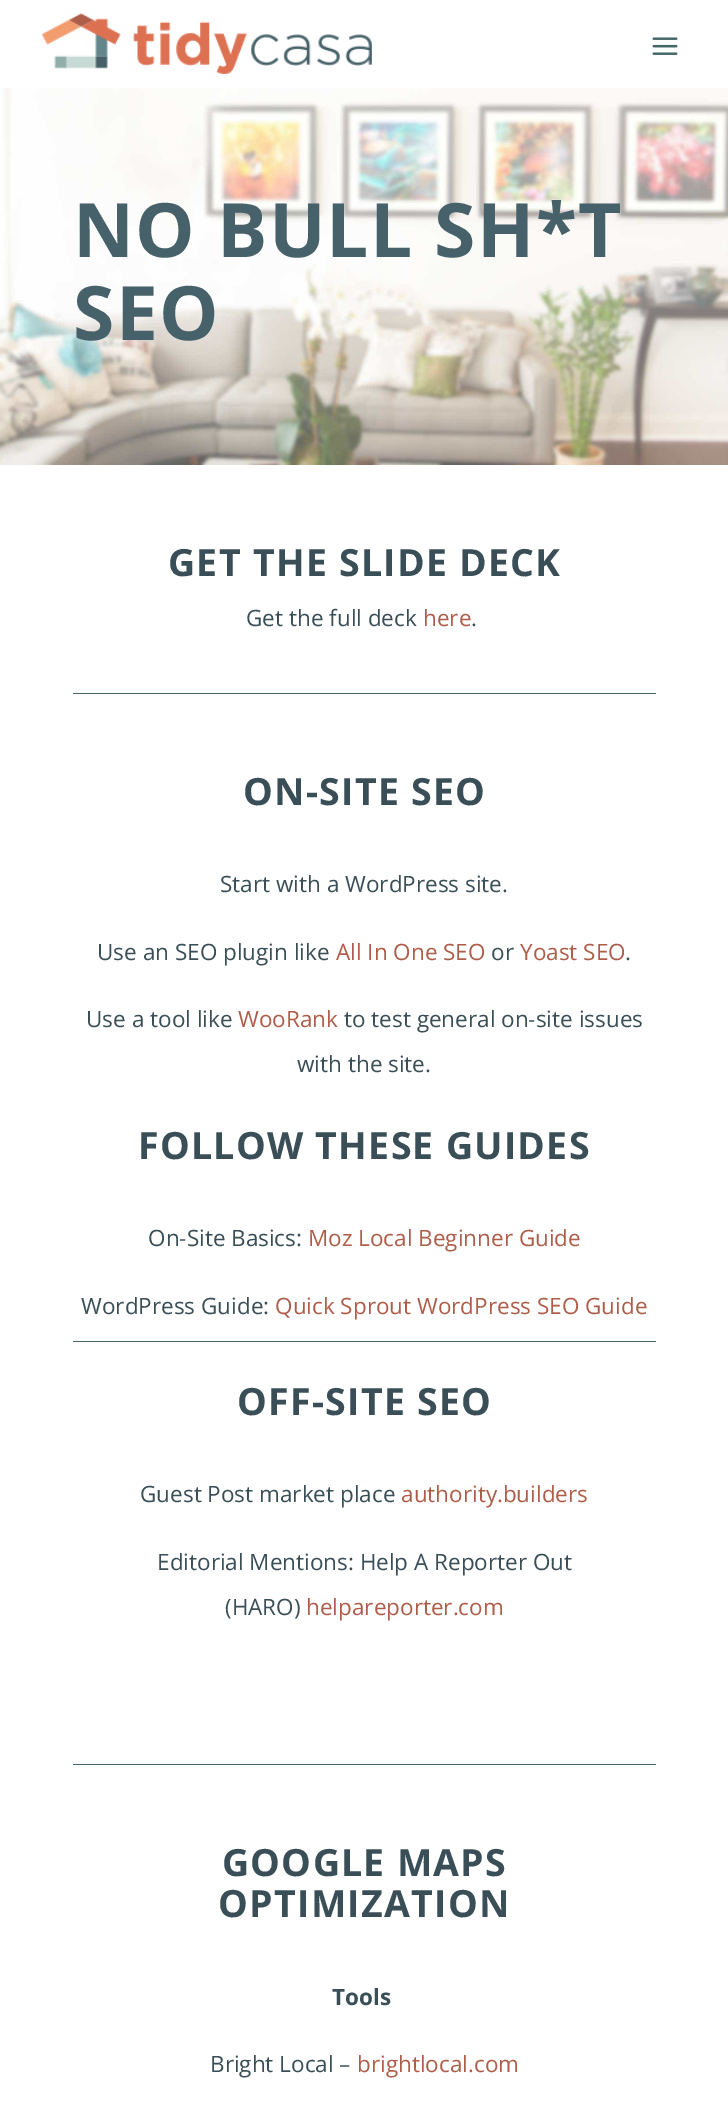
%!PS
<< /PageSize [728 2119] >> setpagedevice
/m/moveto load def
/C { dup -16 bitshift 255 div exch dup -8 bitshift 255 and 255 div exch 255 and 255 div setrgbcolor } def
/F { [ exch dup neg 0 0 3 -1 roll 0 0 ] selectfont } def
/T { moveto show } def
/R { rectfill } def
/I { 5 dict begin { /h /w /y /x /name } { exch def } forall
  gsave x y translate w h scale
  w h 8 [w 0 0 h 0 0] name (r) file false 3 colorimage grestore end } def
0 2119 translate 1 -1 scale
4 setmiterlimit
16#FFFFFF C
0 0 728 2119 R
(1.rgb) 41 13 331 61 I
(2.rgb) 652 37 26 18 I
(3.rgb) 0 88 728 377 I
/OpenSans-Bold 75 F
16#466169 C
73 257 m 1.25 0 (NO BULL SH*T) ashow
73 340 m 1.25 0 (SEO) ashow
/OpenSans-Bold 37.5 F
16#394E56 C
168 576 m 1.25 0 (GET THE SLIDE DECK) ashow
/OpenSans-Regular 22.5 F
(Get the full deck) 246 626 T
16#AE5D49 C
(here) 423 626 T
16#394E56 C
(.) 471 626 T
16#446666 C
73 693 583 1 R
/OpenSans-Bold 37.5 F
16#394E56 C
243 805 m 1.25 0 (ON-SITE SEO) ashow
/OpenSans-Regular 22.5 F
(Start with a WordPress site.) 220 892 T
(Use an SEO plugin like) 97 960 T
16#AE5D49 C
(All In One SEO) 336 960 T
16#394E56 C
(or) 491 960 T
16#AE5D49 C
(Yoast SEO) 520 960 T
16#394E56 C
(.) 625 960 T
(Use a tool like) 86 1027 T
16#AE5D49 C
(WooRank) 238 1027 T
16#394E56 C
(to test general on-site issues) 344 1027 T
(with the site.) 297 1072 T
/OpenSans-Bold 37.5 F
138 1159 m 1.25 0 (FOLLOW THESE GUIDES) ashow
/OpenSans-Regular 22.5 F
(On-Site Basics:) 148 1246 T
16#AE5D49 C
(Moz Local Beginner Guide) 308 1246 T
16#394E56 C
(WordPress Guide:) 81 1314 T
16#AE5D49 C
(Quick Sprout WordPress SEO Guide) 275 1314 T
16#446666 C
73 1341 583 1 R
/OpenSans-Bold 37.5 F
16#394E56 C
237 1415 m 1.25 0 (OFF-SITE SEO) ashow
/OpenSans-Regular 22.5 F
(Guest Post market place) 140 1502 T
16#AE5D49 C
(authority.builders) 401 1502 T
16#394E56 C
(Editorial Mentions: Help A Reporter Out) 157 1570 T
(\(HARO\)) 225 1615 T
16#AE5D49 C
(helpareporter.com) 306 1615 T
16#446666 C
73 1764 583 1 R
/OpenSans-Bold 37.5 F
16#394E56 C
222 1876 m 1.25 0 (GOOGLE MAPS) ashow
218 1917 m 1.25 0 (OPTIMIZATION) ashow
/OpenSans-Bold 22.5 F
(Tools) 332 2005 T
/OpenSans-Regular 22.5 F
(Bright Local –) 210 2072 T
16#AE5D49 C
(brightlocal.com) 357 2072 T
showpage
